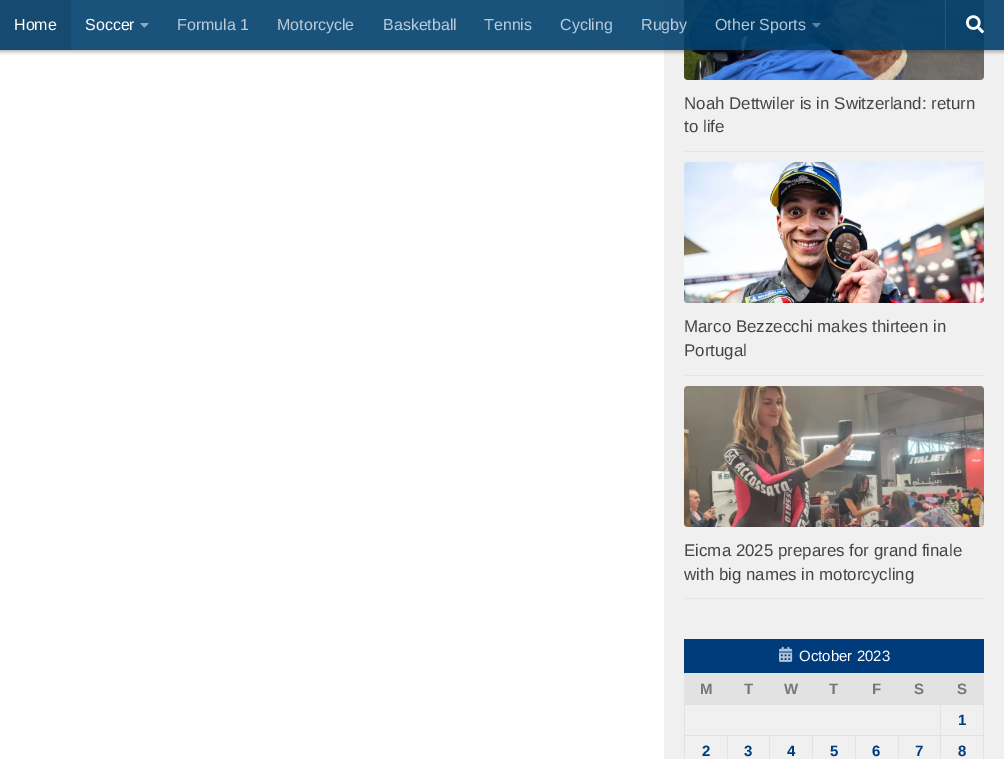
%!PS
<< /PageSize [1004 759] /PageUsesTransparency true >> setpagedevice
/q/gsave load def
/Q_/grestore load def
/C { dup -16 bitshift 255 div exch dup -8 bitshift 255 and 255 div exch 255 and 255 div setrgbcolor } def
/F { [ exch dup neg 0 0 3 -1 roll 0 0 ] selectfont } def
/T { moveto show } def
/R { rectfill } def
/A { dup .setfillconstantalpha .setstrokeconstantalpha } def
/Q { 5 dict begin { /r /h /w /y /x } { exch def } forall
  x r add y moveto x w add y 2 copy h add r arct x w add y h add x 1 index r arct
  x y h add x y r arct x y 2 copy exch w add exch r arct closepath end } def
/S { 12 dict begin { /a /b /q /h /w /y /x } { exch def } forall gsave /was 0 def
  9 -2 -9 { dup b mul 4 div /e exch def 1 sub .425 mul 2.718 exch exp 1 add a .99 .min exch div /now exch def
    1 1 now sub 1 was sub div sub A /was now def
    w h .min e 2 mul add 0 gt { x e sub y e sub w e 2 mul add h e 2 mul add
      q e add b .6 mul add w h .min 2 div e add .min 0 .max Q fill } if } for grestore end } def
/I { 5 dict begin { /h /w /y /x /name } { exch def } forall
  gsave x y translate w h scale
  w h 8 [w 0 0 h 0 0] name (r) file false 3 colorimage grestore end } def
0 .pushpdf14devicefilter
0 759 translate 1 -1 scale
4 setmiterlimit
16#FFFFFF C
0 0 1004 759 R
16#F0F0F0 C
664 0 340 759 R
(4.rgb) 684 0 300 80 I
q
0 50 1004 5 rectclip
16#000000 C
-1 0 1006 52 0 2 .3 S
Q_
0.9 A
16#003F6D C
71 0 933 50 R
1 A
16#174A6F C
0 0 71 50 R
/LiberationSans-Regular 16 F
16#FFFFFF C
(Home) 14 30 T
(Soccer) 85 30 T
(1.rgb) 140 23 9 5 I
16#BACBD8 C
(Formula 1) 177 30 T
(Motorcycle) 277 30 T
(Basketball) 383 30 T
(Tennis) 484 30 T
(Cycling) 560 30 T
(Rugby) 641 30 T
16#B4C5D2 C
(Other Sports) 715 30 T
(2.rgb) 812 23 9 5 I
0.1 A
16#FFFFFF C
945 0 1 50 R
1 A
(3.rgb) 966 15 18 19 I
16#E4E4E4 C
684 151 300 1 R
/LiberationSans-Regular 16.9 F
16#444444 C
(Noah Dettwiler is in Switzerland: return) 684 109 T
(to life) 684 132 T
16#E4E4E4 C
684 375 300 1 R
(5.rgb) 684 162 300 141 I
16#444444 C
(Marco Bezzecchi makes thirteen in) 684 332 T
(Portugal) 684 356 T
16#E4E4E4 C
684 598 300 1 R
(6.rgb) 684 386 300 141 I
16#444444 C
(Eicma 2025 prepares for grand finale) 684 556 T
(with big names in motorcycling) 684 580 T
16#003C7B C
684 639 300 34 R
(7.rgb) 779 646 14 16 I
/LiberationSans-Regular 15 F
16#FFFFFF C
(October 2023) 799 661 T
16#E2E2E2 C
685 674 299 30 R
684 673 300 1 R
940 704 44 1 R
940 735 44 1 R
940 735 1 24 R
898 735 43 1 R
940 704 1 32 R
684 704 257 1 R
898 735 1 24 R
855 735 44 1 R
855 735 1 24 R
812 735 44 1 R
812 735 1 24 R
769 735 44 1 R
769 735 1 24 R
727 735 43 1 R
727 735 1 24 R
684 735 44 1 R
684 735 1 24 R
684 704 1 32 R
684 673 1 32 R
/LiberationSans-Bold 15 F
16#777777 C
(M) 700 694 T
(T) 744 694 T
(W) 784 694 T
(T) 829 694 T
(F) 872 694 T
(S) 914 694 T
(S) 957 694 T
16#E2E2E2 C
983 735 1 24 R
983 704 1 32 R
16#003C7B C
(1) 958 725 T
(2) 702 756 T
(3) 744 756 T
(4) 787 756 T
(5) 830 756 T
(6) 872 756 T
(7) 915 756 T
(8) 958 756 T
.poppdf14devicefilter showpage
